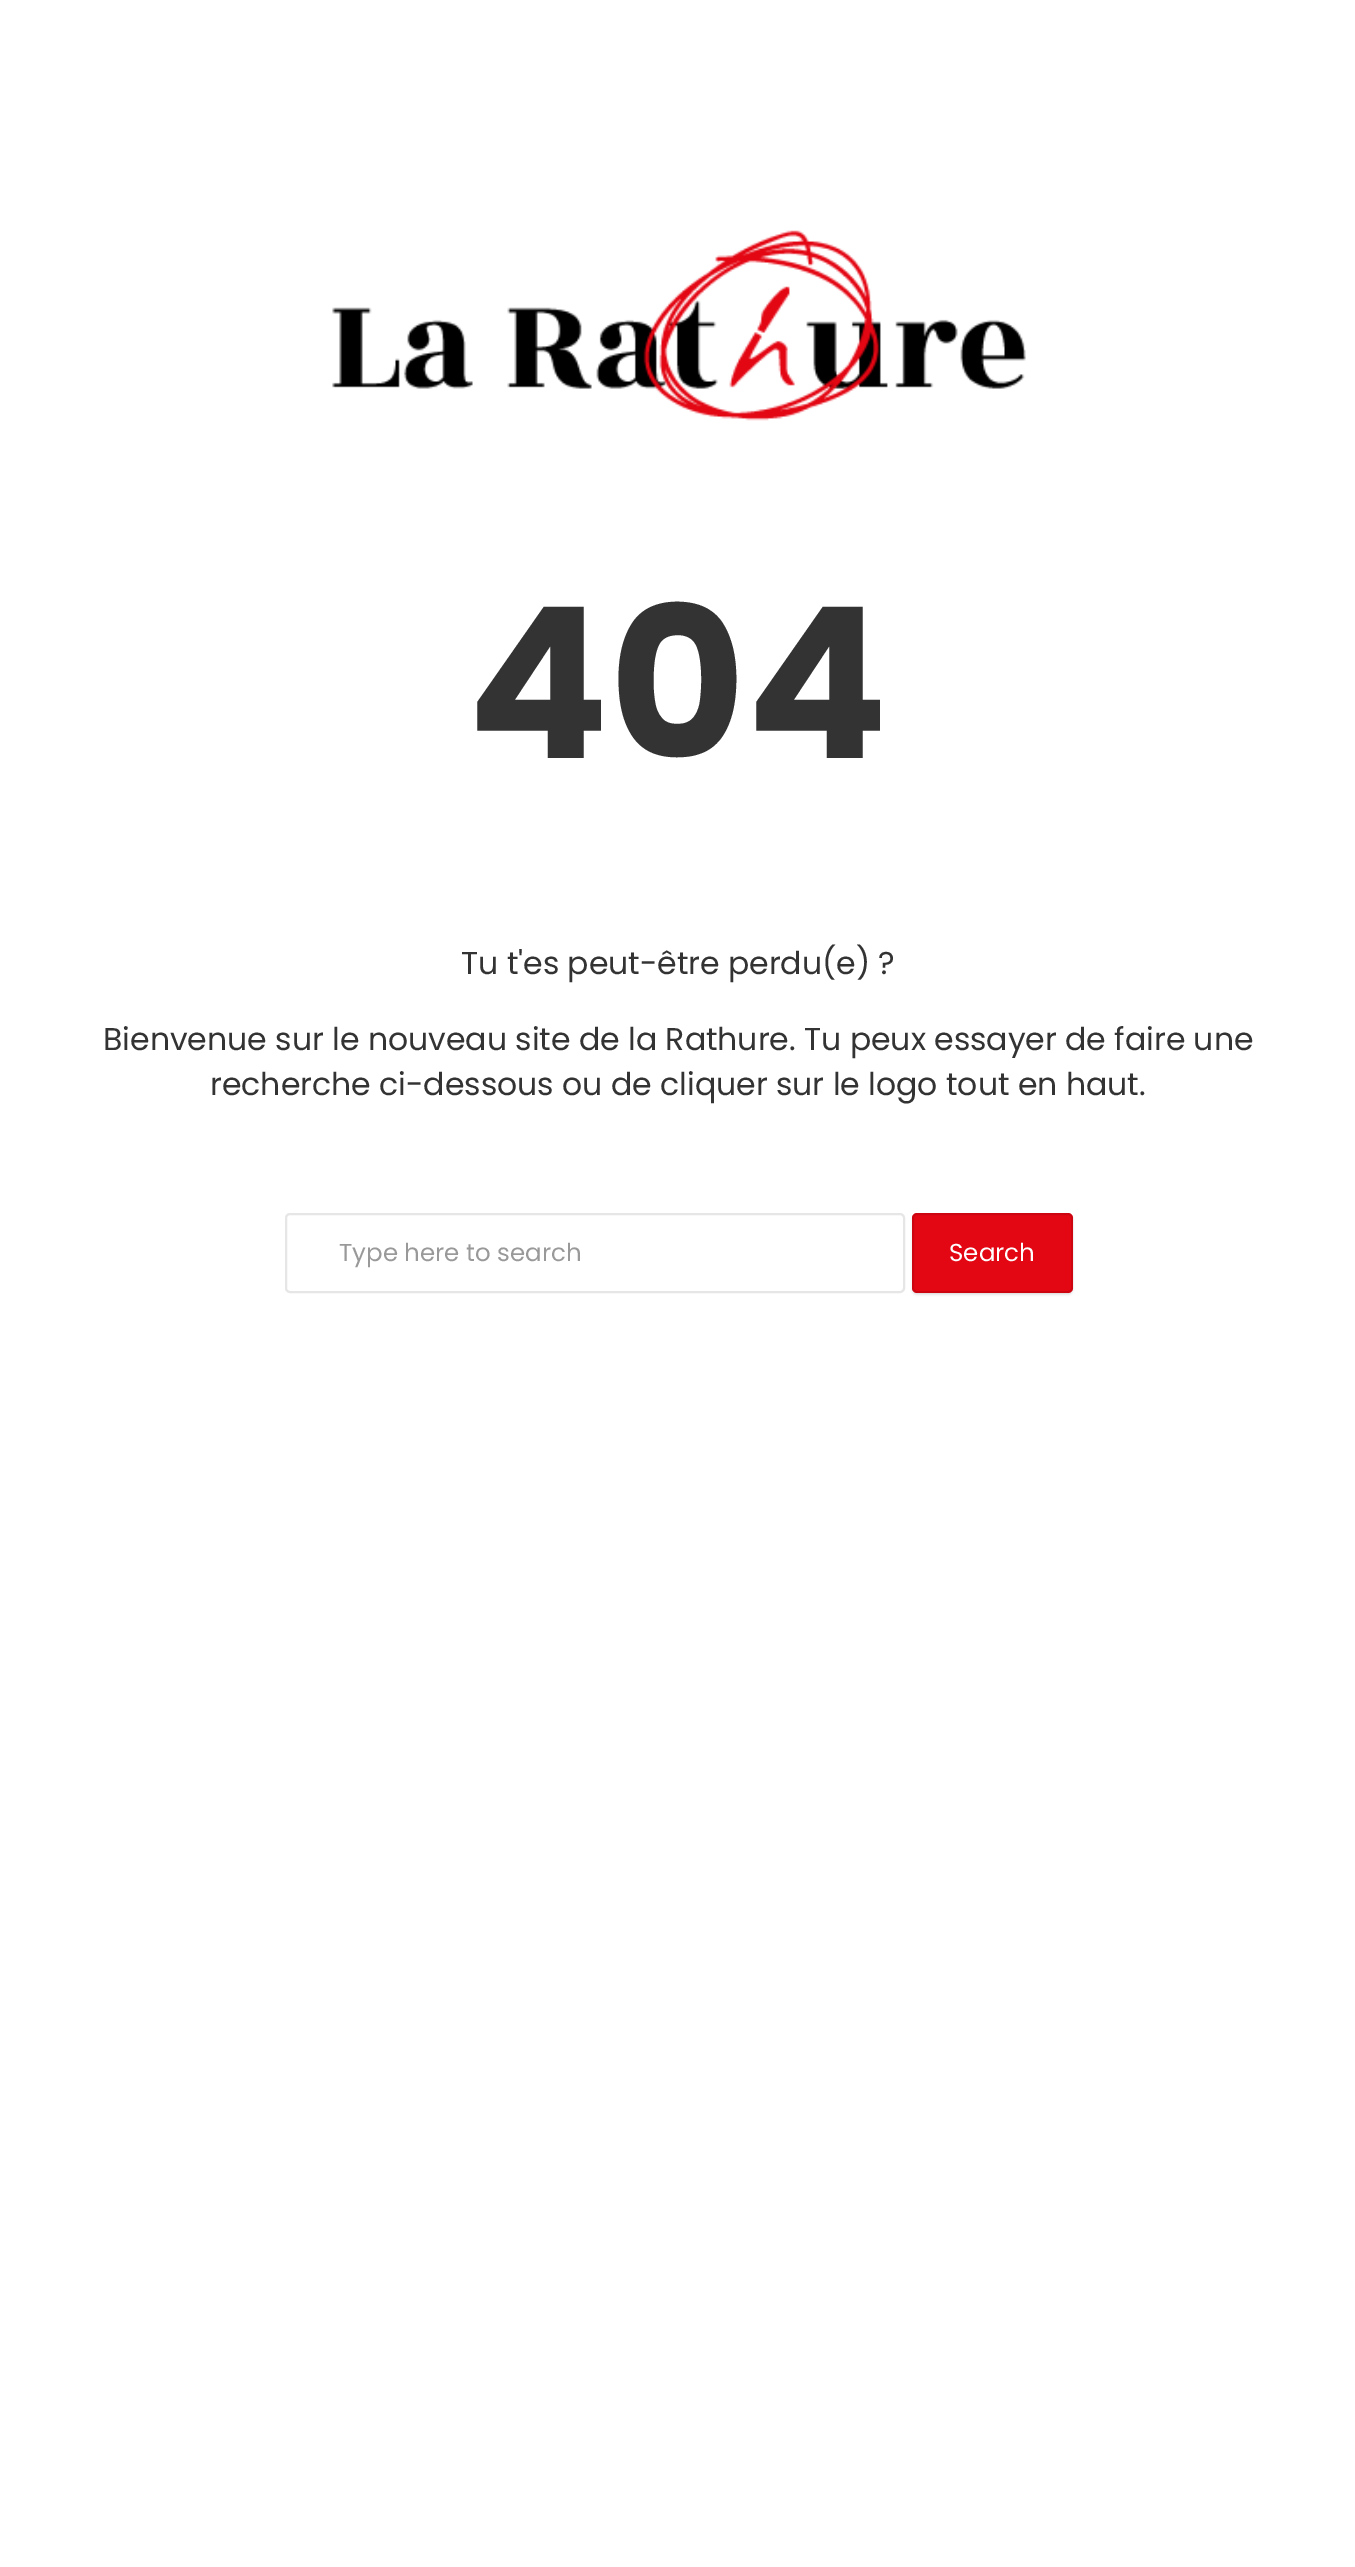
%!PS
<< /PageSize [1355 2567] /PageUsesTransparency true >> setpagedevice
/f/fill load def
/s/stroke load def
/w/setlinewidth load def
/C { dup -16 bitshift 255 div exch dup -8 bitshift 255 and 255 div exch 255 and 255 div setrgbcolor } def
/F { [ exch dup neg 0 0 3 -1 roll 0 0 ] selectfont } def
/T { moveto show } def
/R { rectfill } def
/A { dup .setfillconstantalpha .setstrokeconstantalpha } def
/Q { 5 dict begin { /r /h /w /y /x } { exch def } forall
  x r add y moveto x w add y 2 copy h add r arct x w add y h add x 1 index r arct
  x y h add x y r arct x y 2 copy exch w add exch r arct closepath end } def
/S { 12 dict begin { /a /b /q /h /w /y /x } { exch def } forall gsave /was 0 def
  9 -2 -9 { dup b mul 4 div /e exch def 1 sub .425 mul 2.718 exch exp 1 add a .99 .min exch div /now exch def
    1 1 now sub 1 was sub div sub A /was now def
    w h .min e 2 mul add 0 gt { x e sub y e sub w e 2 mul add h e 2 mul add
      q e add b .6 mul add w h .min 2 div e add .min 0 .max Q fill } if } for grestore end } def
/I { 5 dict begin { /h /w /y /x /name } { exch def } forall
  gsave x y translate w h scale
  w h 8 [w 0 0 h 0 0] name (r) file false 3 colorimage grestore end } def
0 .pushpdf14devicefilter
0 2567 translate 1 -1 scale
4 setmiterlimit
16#FFFFFF C
0 0 1355 2567 R
(1.rgb) 332 230 694 191 I
/Poppins-Bold 210 F
16#333333 C
(404) 467 758 T
/Poppins-Regular 31.5 F
(Tu t'es peut-être perdu\(e\) ?) 461 974 T
(Bienvenue sur le nouveau site de la Rathure. Tu peux essayer de faire une) 103 1050 T
(recherche ci-dessous ou de cliquer sur le logo tout en haut.) 210 1095 T
16#E6E6E6 C
2 w
286 1214 618 78 4 Q s
/Poppins-Regular 24.5 F
16#999999 C
(Type here to search) 339 1261 T
16#000000 C
912 1215 161 80 5 1 .1 S
16#E30613 C
912 1213 161 80 5 Q f
0.1 A
16#000000 C
913 1214 159 78 4 Q s
1 A
16#FFFFFF C
(Search) 949 1261 T
.poppdf14devicefilter showpage
